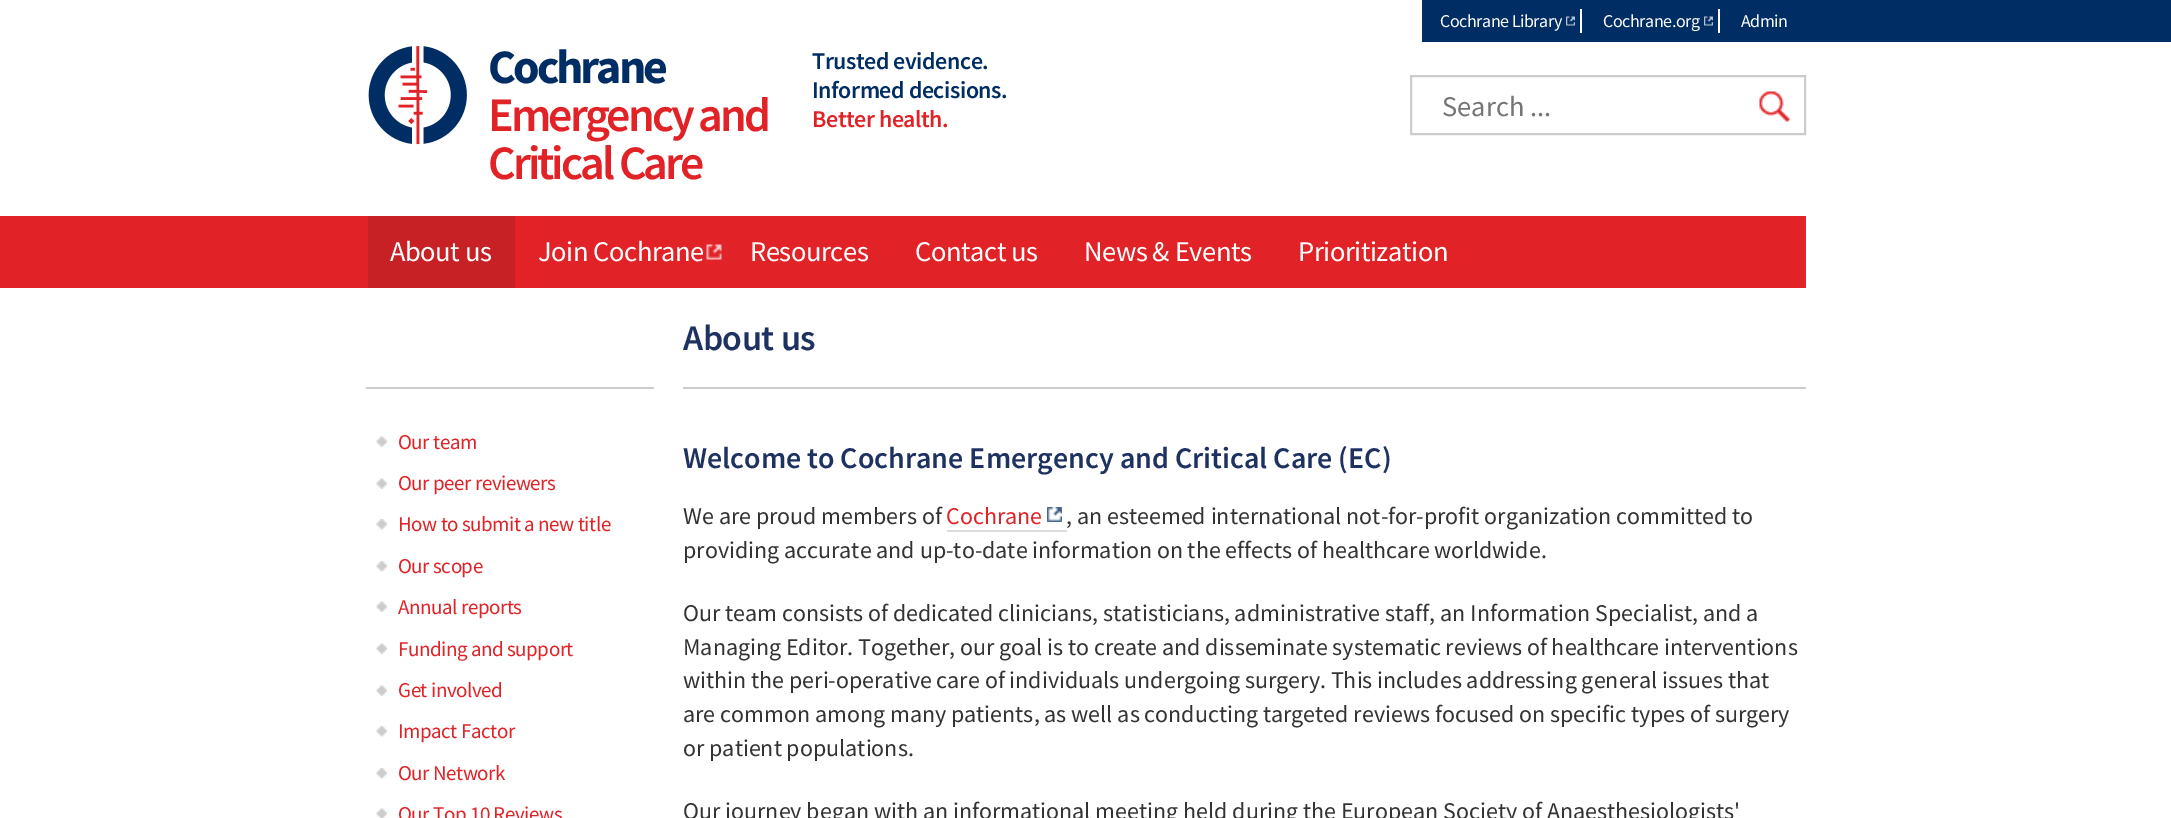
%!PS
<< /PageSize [2171 818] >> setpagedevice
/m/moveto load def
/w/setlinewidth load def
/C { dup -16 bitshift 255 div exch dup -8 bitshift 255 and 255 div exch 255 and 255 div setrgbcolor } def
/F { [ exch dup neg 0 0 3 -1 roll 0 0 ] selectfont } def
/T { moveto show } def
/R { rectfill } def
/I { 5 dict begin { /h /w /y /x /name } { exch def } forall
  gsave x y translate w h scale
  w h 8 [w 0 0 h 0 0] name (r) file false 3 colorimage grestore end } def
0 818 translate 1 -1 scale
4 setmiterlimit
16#FFFFFF C
0 0 2171 818 R
16#002D64 C
1422 0 749 42 R
(1.rgb) 1566 16 9 10 I
16#FFFFFF C
1580 9 2 24 R
/SourceSansPro-Regular 18 F
1440 27 m -.45 0 (Cochrane Library) ashow
(2.rgb) 1704 16 9 10 I
1718 9 2 24 R
1603 27 m -.45 0 (Cochrane.org) ashow
1741 27 m -.45 0 (Admin) ashow
(3.rgb) 368 46 99 99 I
/SourceSansPro-Bold 48 F
16#002D64 C
488 83 m -3 0 (Cochrane) ashow
/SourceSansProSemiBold-SemiBold 48 F
16#E12328 C
488 131 m -3 0 (Emergency and) ashow
488 179 m -3 0 (Critical Care) ashow
/SourceSansProSemiBold-SemiBold 24 F
16#002D64 C
812 69 m -.45 0 (Trusted evidence.) ashow
812 98 m -.45 0 (Informed decisions.) ashow
16#E12328 C
812 127 m -.45 0 (Better health.) ashow
16#CCCCCC C
2 w
1411 76 394 58 rectstroke
/SourceSansPro-Regular 28.5 F
16#757575 C
(Search ...) 1442 116 T
(4.rgb) 1759 91 31 31 I
16#E12328 C
515 216 1291 72 R
0 216 368 72 R
16#C72025 C
368 216 147 72 R
16#FFFFFF C
390 261 m -.45 0 (About us) ashow
(5.rgb) 706 244 16 16 I
538 261 m -.45 0 (Join Cochrane) ashow
750 261 m -.45 0 (Resources) ashow
915 261 m -.45 0 (Contact us) ashow
1084 261 m -.45 0 (News & Events) ashow
1298 261 m -.45 0 (Prioritization) ashow
/SourceSansProSemiBold-SemiBold 36 F
16#1E3262 C
683 350 m -.45 0 (About us) ashow
16#CCCCCC C
366 387 288 2 R
(6.rgb) 376 436 11 11 I
/SourceSansPro-Regular 21 F
16#E12328 C
398 449 m -.45 0 (Our team) ashow
(6.rgb) 376 478 11 11 I
398 490 m -.45 0 (Our peer reviewers) ashow
(7.rgb) 376 519 11 11 I
398 531 m -.45 0 (How to submit a new title) ashow
(7.rgb) 376 561 11 11 I
398 573 m -.45 0 (Our scope) ashow
(6.rgb) 376 601 11 11 I
398 614 m -.45 0 (Annual reports) ashow
(6.rgb) 376 643 11 11 I
398 656 m -.45 0 (Funding and support) ashow
(6.rgb) 376 685 11 11 I
398 697 m -.45 0 (Get involved) ashow
(7.rgb) 376 726 11 11 I
398 738 m -.45 0 (Impact Factor) ashow
(7.rgb) 376 768 11 11 I
398 780 m -.45 0 (Our Network) ashow
(8.rgb) 376 808 11 10 I
398 821 m -.45 0 (Our Top 10 Reviews) ashow
16#CCCCCC C
683 387 1123 2 R
/SourceSansProSemiBold-SemiBold 30 F
16#1E3262 C
(Welcome to Cochrane Emergency and Critical Care \(EC\)) 683 468 T
/SourceSansPro-Regular 24 F
16#333333 C
(We are proud members of) 683 524 T
16#E12328 C
(Cochrane) 946 524 T
(9.rgb) 1047 507 15 15 I
16#333333 C
(, an esteemed international not-for-profit organization committed to) 1066 524 T
16#DCDCDC C
947 530 120 2 R
16#333333 C
(providing accurate and up-to-date information on the effects of healthcare worldwide.) 683 558 T
(Our team consists of dedicated clinicians, statisticians, administrative staff, an Information Specialist, and a) 683 621 T
(Managing Editor. Together, our goal is to create and disseminate systematic reviews of healthcare interventions) 683 655 T
(within the peri-operative care of individuals undergoing surgery. This includes addressing general issues that) 683 688 T
(are common among many patients, as well as conducting targeted reviews focused on specific types of surgery) 683 722 T
(or patient populations.) 683 756 T
(Our journey began with an informational meeting held during the European Society of Anaesthesiologists') 683 819 T
showpage
